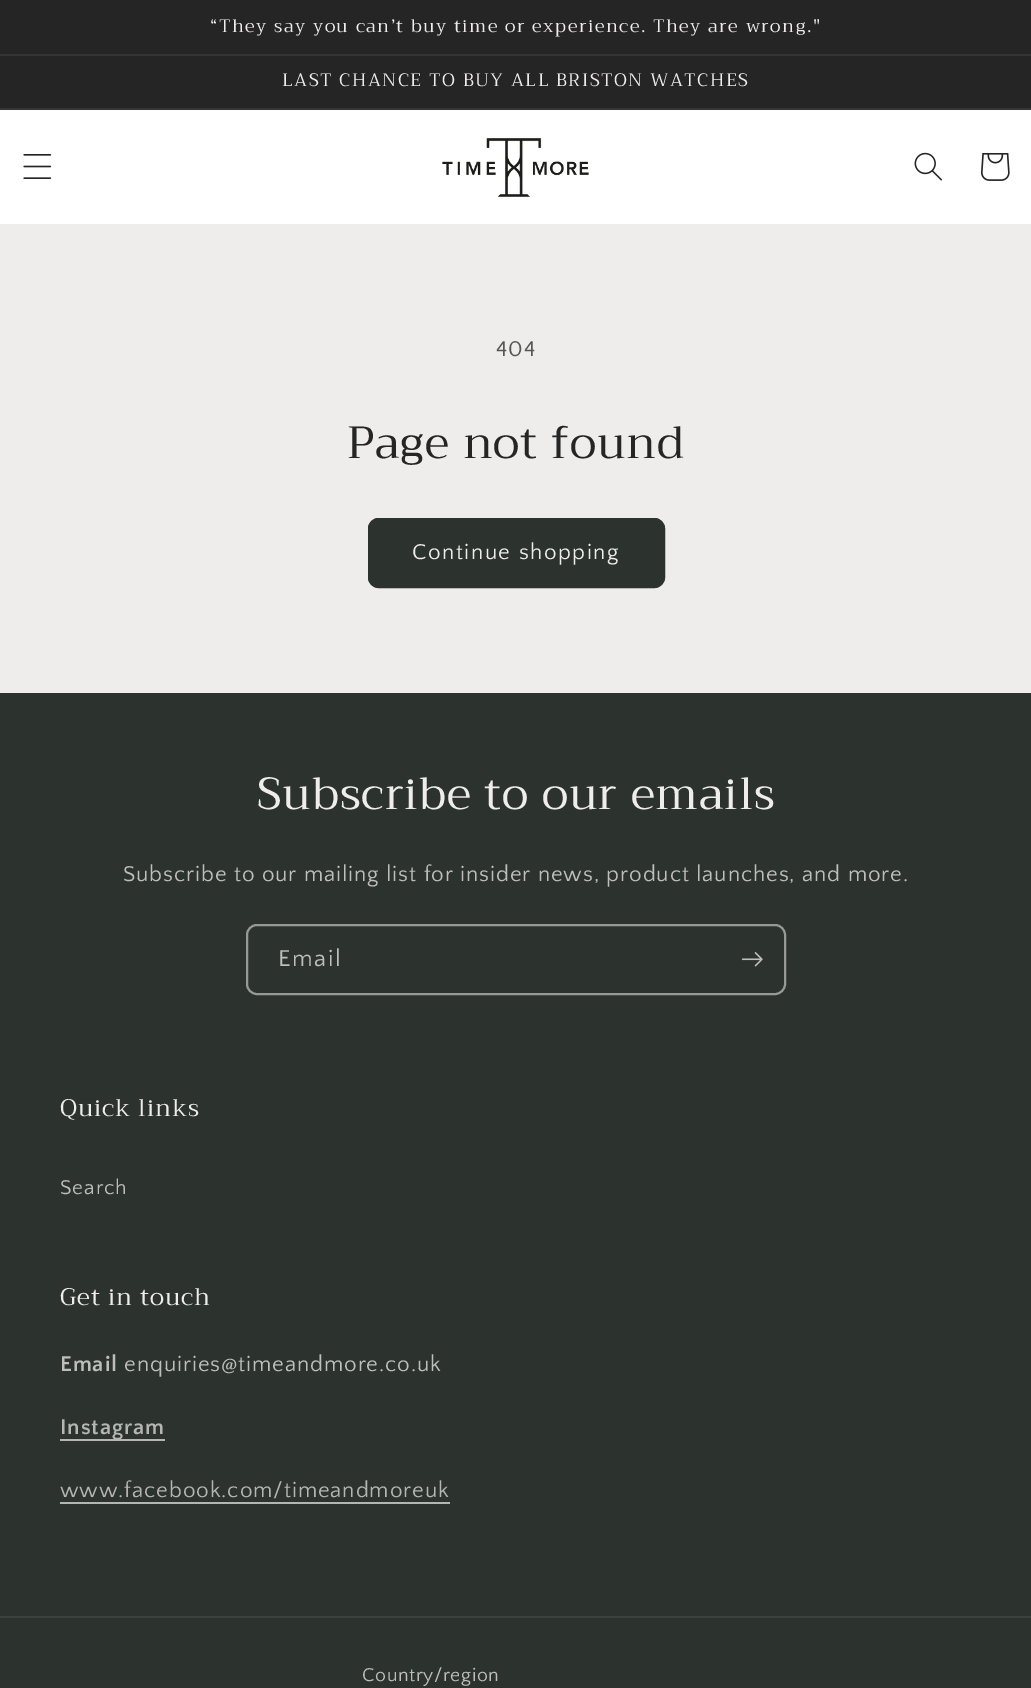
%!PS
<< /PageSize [1031 1688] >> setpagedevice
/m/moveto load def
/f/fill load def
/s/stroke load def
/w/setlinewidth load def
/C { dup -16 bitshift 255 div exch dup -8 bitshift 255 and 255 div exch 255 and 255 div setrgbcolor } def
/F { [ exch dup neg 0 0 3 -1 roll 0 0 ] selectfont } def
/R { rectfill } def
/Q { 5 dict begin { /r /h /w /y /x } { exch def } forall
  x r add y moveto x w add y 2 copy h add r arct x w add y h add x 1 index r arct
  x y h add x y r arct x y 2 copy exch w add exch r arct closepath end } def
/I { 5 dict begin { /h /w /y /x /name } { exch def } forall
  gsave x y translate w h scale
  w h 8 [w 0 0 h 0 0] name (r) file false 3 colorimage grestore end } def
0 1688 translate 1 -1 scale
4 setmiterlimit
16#EFECEC C
0 0 1031 1688 R
16#252525 C
0 0 1031 54 R
16#353535 C
0 54 1031 2 R
/Trirong-Regular 18 F
16#EFECEC C
210 32 m 1.5 0 (“They say you can’t buy time or experience. They are wrong.") ashow
16#252525 C
0 56 1031 52 R
16#353535 C
0 108 1031 2 R
16#EFECEC C
282 86 m 1.5 0 (LAST CHANCE TO BUY ALL BRISTON WATCHES) ashow
16#FFFFFF C
0 110 1031 114 R
(1.rgb) 23 154 29 25 I
(2.rgb) 442 138 147 59 I
(3.rgb) 914 152 28 29 I
(4.rgb) 981 153 29 28 I
/QuattrocentoSans-Regular 22.5 F
16#585757 C
496 356 m .9 0 (404) ashow
/Trirong-Regular 45 F
16#252525 C
347 458 m .9 0 (Page not found) ashow
16#2C332F C
368 518 297 70 11 Q f
2 w
369 519 295 68 10 Q s
/QuattrocentoSans-Regular 22.5 F
16#EFECEC C
412 559 m 1.5 0 (Continue shopping) ashow
16#2C332F C
0 693 1031 995 R
/Trirong-Regular 45 F
16#EFECEC C
257 809 m .9 0 (Subscribe to our emails) ashow
/QuattrocentoSans-Regular 22.5 F
16#BEBEBD C
123 881 m .9 0 (Subscribe to our mailing list for insider news, product launches, and more.) ashow
16#979997 C
247 925 538 69 10 Q s
/QuattrocentoSans-Regular 24 F
16#BEBEBD C
278 966 m 1.5 0 (Email) ashow
(5.rgb) 741 952 22 15 I
/Trirong-Regular 24 F
16#EFECEC C
60 1116 m .9 0 (Quick links) ashow
/QuattrocentoSans-Regular 21 F
16#BEBEBD C
60 1194 m .9 0 (Search) ashow
/Trirong-Regular 24 F
16#EFECEC C
60 1305 m .9 0 (Get in touch) ashow
/QuattrocentoSans-Bold 22.5 F
16#BEBEBD C
60 1371 m .9 0 (Email) ashow
/QuattrocentoSans-Regular 22.5 F
124 1371 m .9 0 (enquiries@timeandmore.co.uk) ashow
16#B5B5B3 C
60 1439 105 2 R
/QuattrocentoSans-Bold 22.5 F
16#B5B5B4 C
60 1434 m .9 0 (Instagram) ashow
/QuattrocentoSans-Regular 22.5 F
60 1497 m .9 0 (www.facebook.com/timeandmoreuk) ashow
16#B5B5B3 C
60 1502 390 2 R
16#3C423E C
0 1616 1031 2 R
/QuattrocentoSans-Regular 19.5 F
16#BEBEBD C
362 1681 m .6 0 (Country/region) ashow
showpage
